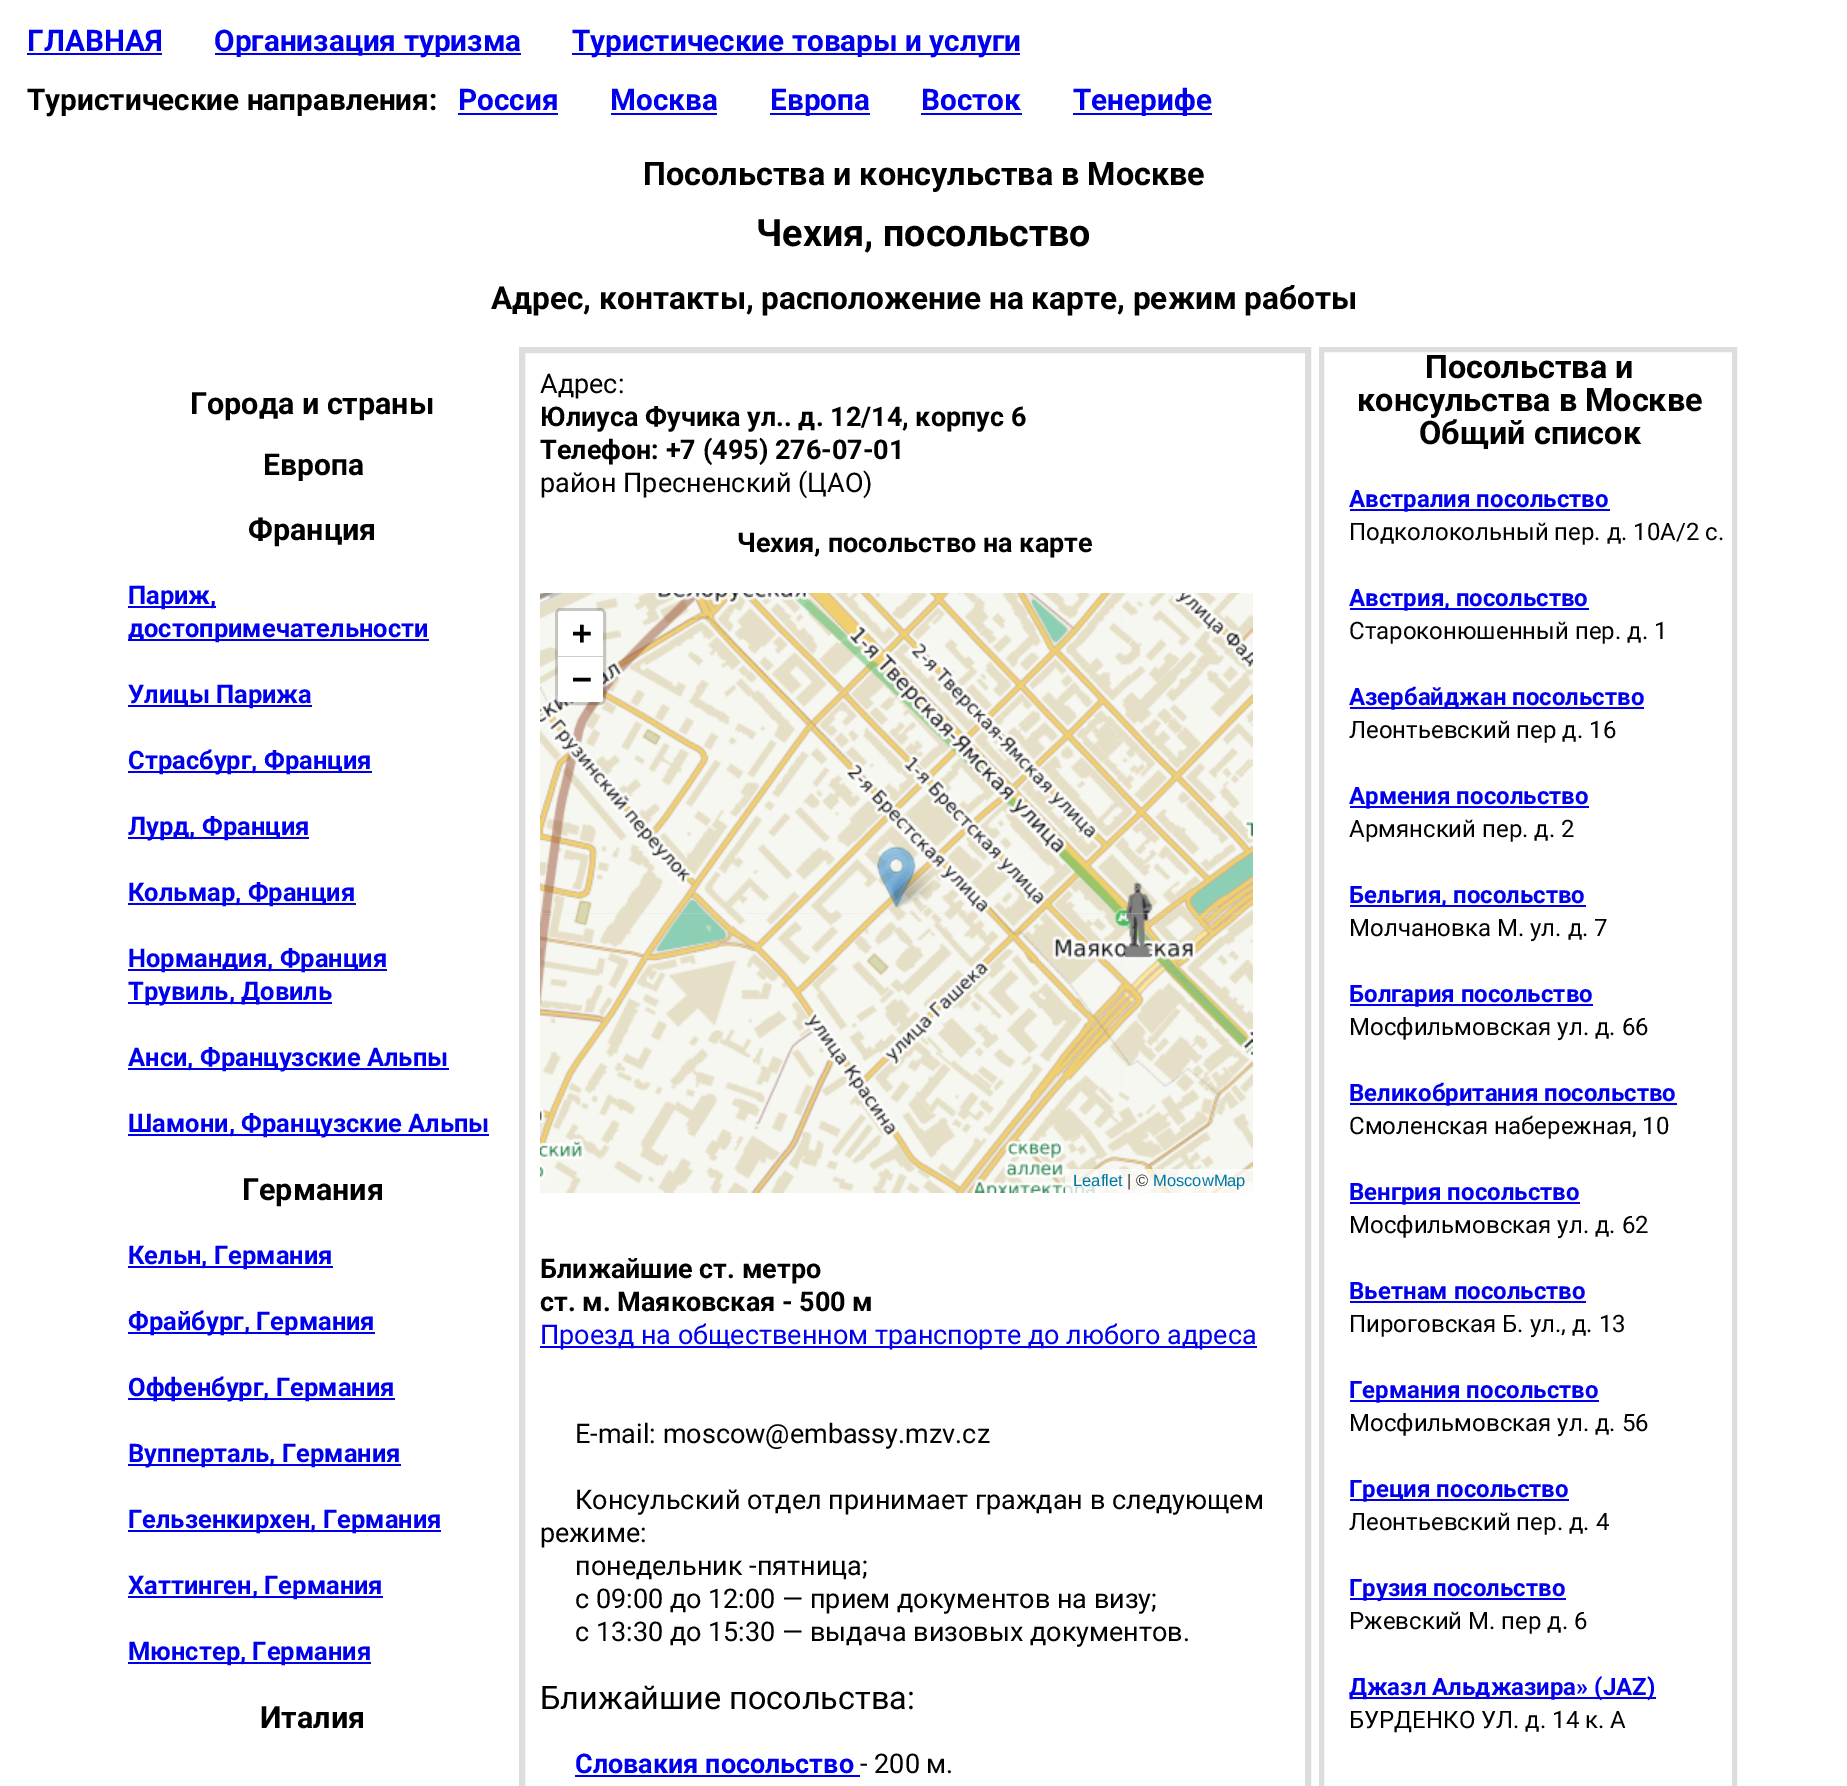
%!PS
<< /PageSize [1847 1786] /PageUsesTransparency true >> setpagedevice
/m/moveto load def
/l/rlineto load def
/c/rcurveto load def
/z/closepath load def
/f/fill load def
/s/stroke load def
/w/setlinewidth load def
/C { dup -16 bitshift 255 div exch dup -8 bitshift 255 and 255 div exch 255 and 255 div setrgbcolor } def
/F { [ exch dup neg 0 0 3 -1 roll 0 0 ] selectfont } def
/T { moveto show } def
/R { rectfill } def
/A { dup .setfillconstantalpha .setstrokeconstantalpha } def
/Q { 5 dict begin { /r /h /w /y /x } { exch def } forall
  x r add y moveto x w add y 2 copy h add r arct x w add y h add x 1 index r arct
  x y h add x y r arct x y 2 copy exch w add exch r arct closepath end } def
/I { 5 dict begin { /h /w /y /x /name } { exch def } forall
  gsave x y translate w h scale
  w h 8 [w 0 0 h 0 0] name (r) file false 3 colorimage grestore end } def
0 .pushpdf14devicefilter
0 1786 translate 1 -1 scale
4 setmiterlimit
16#FFFFFF C
0 0 1847 1786 R
/Roboto-Bold 29.75 F
16#0000EE C
(ГЛАВНАЯ) 27 51 T
27 53 135 2 R
215 53 306 2 R
(Организация туризма) 214 51 T
572 53 448 2 R
(Туристические товары и услуги) 572 51 T
16#000000 C
(Туристические направления:) 27 110 T
16#0000EE C
(Россия) 458 110 T
458 113 100 2 R
(Москва) 610 110 T
611 113 106 2 R
770 113 100 2 R
(Европа) 770 110 T
(Восток) 921 110 T
921 113 101 2 R
1073 113 139 2 R
(Тенерифе) 1073 110 T
/Roboto-Bold 32.4 F
16#000000 C
(Посольства и консульства в Москве) 643 185 T
/Roboto-Bold 37.75 F
(Чехия, посольство) 756 246 T
/Roboto-Bold 31.6 F
(Адрес, контакты, расположение на карте, режим работы) 491 309 T
/Roboto-Bold 30.5 F
(Города и страны) 190 414 T
/Roboto-Bold 30 F
(Европа) 263 475 T
/Roboto-Bold 30.5 F
(Франция) 248 540 T
16#0000EE C
128 606 88 2 R
/Roboto-Bold 25.5 F
(Париж,) 128 604 T
128 639 301 2 R
(достопримечательности) 128 637 T
128 705 184 2 R
(Улицы Парижа) 128 703 T
128 771 244 2 R
(Страсбург, Франция) 128 769 T
128 837 181 2 R
(Лурд, Франция) 128 835 T
128 903 228 2 R
(Кольмар, Франция) 128 901 T
128 969 259 2 R
(Нормандия, Франция) 128 967 T
128 1002 204 2 R
(Трувиль, Довиль) 128 1000 T
128 1068 321 2 R
(Анси, Французские Альпы) 128 1066 T
128 1134 361 2 R
(Шамони, Французские Альпы) 128 1132 T
/Roboto-Bold 30.5 F
16#000000 C
(Германия) 242 1200 T
16#0000EE C
128 1266 205 2 R
/Roboto-Bold 25.5 F
(Кельн, Германия) 128 1264 T
128 1332 247 2 R
(Фрайбург, Германия) 128 1330 T
128 1398 267 2 R
(Оффенбург, Германия) 128 1396 T
128 1464 273 2 R
(Вупперталь, Германия) 128 1462 T
128 1530 313 2 R
(Гельзенкирхен, Германия) 128 1528 T
128 1596 255 2 R
(Хаттинген, Германия) 128 1594 T
128 1662 243 2 R
(Мюнстер, Германия) 128 1660 T
/Roboto-Bold 30.5 F
16#000000 C
(Италия) 260 1728 T
16#DDDDDD C
6 w
522 350 786 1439 rectstroke
/Roboto-Regular 27 F
16#000000 C
(Адрес:) 540 393 T
/Roboto-Bold 27 F
(Юлиуса Фучика ул.. д. 12/14, корпус 6) 540 426 T
(Tелефон: +7 \(495\) 276-07-01) 540 459 T
/Roboto-Regular 27 F
(район Пресненский \(ЦАО\)) 540 492 T
/Roboto-Bold 27 F
(Чехия, посольство на карте) 737 552 T
16#DDDDDD C
540 593 713 600 R
(2.rgb) 738 593 385 321 I
(5.rgb) 738 913 385 280 I
(1.rgb) 540 593 199 321 I
(3.rgb) 1122 593 131 321 I
(4.rgb) 540 913 199 280 I
(6.rgb) 1122 913 131 280 I
(8.rgb) 891 867 42 41 I
(7.rgb) 877 846 39 62 I
0.2 A
16#000000 C
3 w
556.5 609.5 48 94 4.5 Q s
1 A
16#FFFFFF C
561 611 m 39 0 l 1.5 0 3 1.5 3 3 c 0 43 l -45 0 l 0 -43 l 0 -1.5 1.5 -3 3 -3 c z f
16#CCCCCC C
558 656 45 1 R
/DejaVuSansMono-Bold 33 F
16#000000 C
(+) 572 644 T
16#FFFFFF C
558 657 m 45 0 l 0 42 l 0 1.5 -1.5 3 -3 3 c -39 0 l -1.5 0 -3 -1.5 -3 -3 c z f
16#000000 C
(−) 572 690 T
0.7 A
16#FFFFFF C
1065 1169 188 24 R
/LiberationSans-Regular 16.5 F
1 A
16#0078A8 C
(Leaflet) 1073 1186 T
16#333333 C
(| ©) 1127 1186 T
16#0078A8 C
(MoscowMap) 1153 1186 T
/Roboto-Bold 27 F
16#000000 C
(Ближайшие ст. метро) 540 1278 T
(ст. м. Маяковская - 500 м) 540 1311 T
16#0000EE C
540 1346 717 2 R
/Roboto-Regular 27 F
(Проезд на общественном транспорте до любого адреса) 540 1344 T
16#000000 C
(E-mail: moscow@embassy.mzv.cz) 575 1443 T
(Консульский отдел принимает граждан в следующем) 575 1509 T
(режиме:) 540 1542 T
(понедельник -пятница;) 575 1575 T
(с 09:00 до 12:00 — прием документов на визу;) 575 1608 T
(с 13:30 до 15:30 — выдача визовых документов.) 575 1641 T
/Roboto-Regular 32.4 F
(Ближайшие посольства:) 540 1709 T
/Roboto-Bold 27 F
16#0000EE C
(Словакия посольство) 575 1773 T
575 1775 285 2 R
/Roboto-Regular 27 F
16#000000 C
(- 200 м.) 860 1773 T
16#DDDDDD C
5 w
1321.5 349.5 413 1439 rectstroke
/Roboto-Bold 32.4 F
16#000000 C
(Посольства и) 1425 378 T
(консульства в Москве) 1357 411 T
(Общий список) 1419 444 T
16#0000EE C
1350 509 260 2 R
/Roboto-Bold 24 F
(Австралия посольство) 1349 507 T
/Roboto-Regular 24 F
16#000000 C
(Подколокольный пер. д. 10А/2 с.) 1349 540 T
16#0000EE C
1350 608 239 2 R
/Roboto-Bold 24 F
(Австрия, посольство) 1349 606 T
/Roboto-Regular 24 F
16#000000 C
(Староконюшенный пер. д. 1) 1349 639 T
16#0000EE C
1350 707 294 2 R
/Roboto-Bold 24 F
(Азербайджан посольство) 1349 705 T
/Roboto-Regular 24 F
16#000000 C
(Леонтьевский пер д. 16) 1349 738 T
16#0000EE C
1350 806 239 2 R
/Roboto-Bold 24 F
(Армения посольство) 1349 804 T
/Roboto-Regular 24 F
16#000000 C
(Армянский пер. д. 2) 1349 837 T
16#0000EE C
1350 905 236 2 R
/Roboto-Bold 24 F
(Бельгия, посольство) 1349 903 T
/Roboto-Regular 24 F
16#000000 C
(Молчановка М. ул. д. 7) 1349 936 T
16#0000EE C
1350 1004 243 2 R
/Roboto-Bold 24 F
(Болгария посольство) 1349 1002 T
/Roboto-Regular 24 F
16#000000 C
(Мосфильмовская ул. д. 66) 1349 1035 T
16#0000EE C
1350 1103 327 2 R
/Roboto-Bold 24 F
(Великобритания посольство) 1349 1101 T
/Roboto-Regular 24 F
16#000000 C
(Смоленская набережная, 10) 1349 1134 T
16#0000EE C
1350 1202 230 2 R
/Roboto-Bold 24 F
(Венгрия посольство) 1349 1200 T
/Roboto-Regular 24 F
16#000000 C
(Мосфильмовская ул. д. 62) 1349 1233 T
/Roboto-Bold 24 F
16#0000EE C
(Вьетнам посольство) 1349 1299 T
1350 1301 236 2 R
/Roboto-Regular 24 F
16#000000 C
(Пироговская Б. ул., д. 13) 1349 1332 T
16#0000EE C
1350 1400 249 2 R
/Roboto-Bold 24 F
(Германия посольство) 1349 1398 T
/Roboto-Regular 24 F
16#000000 C
(Мосфильмовская ул. д. 56) 1349 1431 T
16#0000EE C
1350 1499 219 2 R
/Roboto-Bold 24 F
(Греция посольство) 1349 1497 T
/Roboto-Regular 24 F
16#000000 C
(Леонтьевский пер. д. 4) 1349 1530 T
16#0000EE C
1350 1598 216 2 R
/Roboto-Bold 24 F
(Грузия посольство) 1349 1596 T
/Roboto-Regular 24 F
16#000000 C
(Ржевский М. пер д. 6) 1349 1629 T
16#0000EE C
1350 1697 306 2 R
/Roboto-Bold 24 F
(Джазл Альджазира» \(JAZ\)) 1349 1695 T
/Roboto-Regular 24 F
16#000000 C
(БУРДЕНКО УЛ. д. 14 к. А) 1349 1728 T
.poppdf14devicefilter showpage
